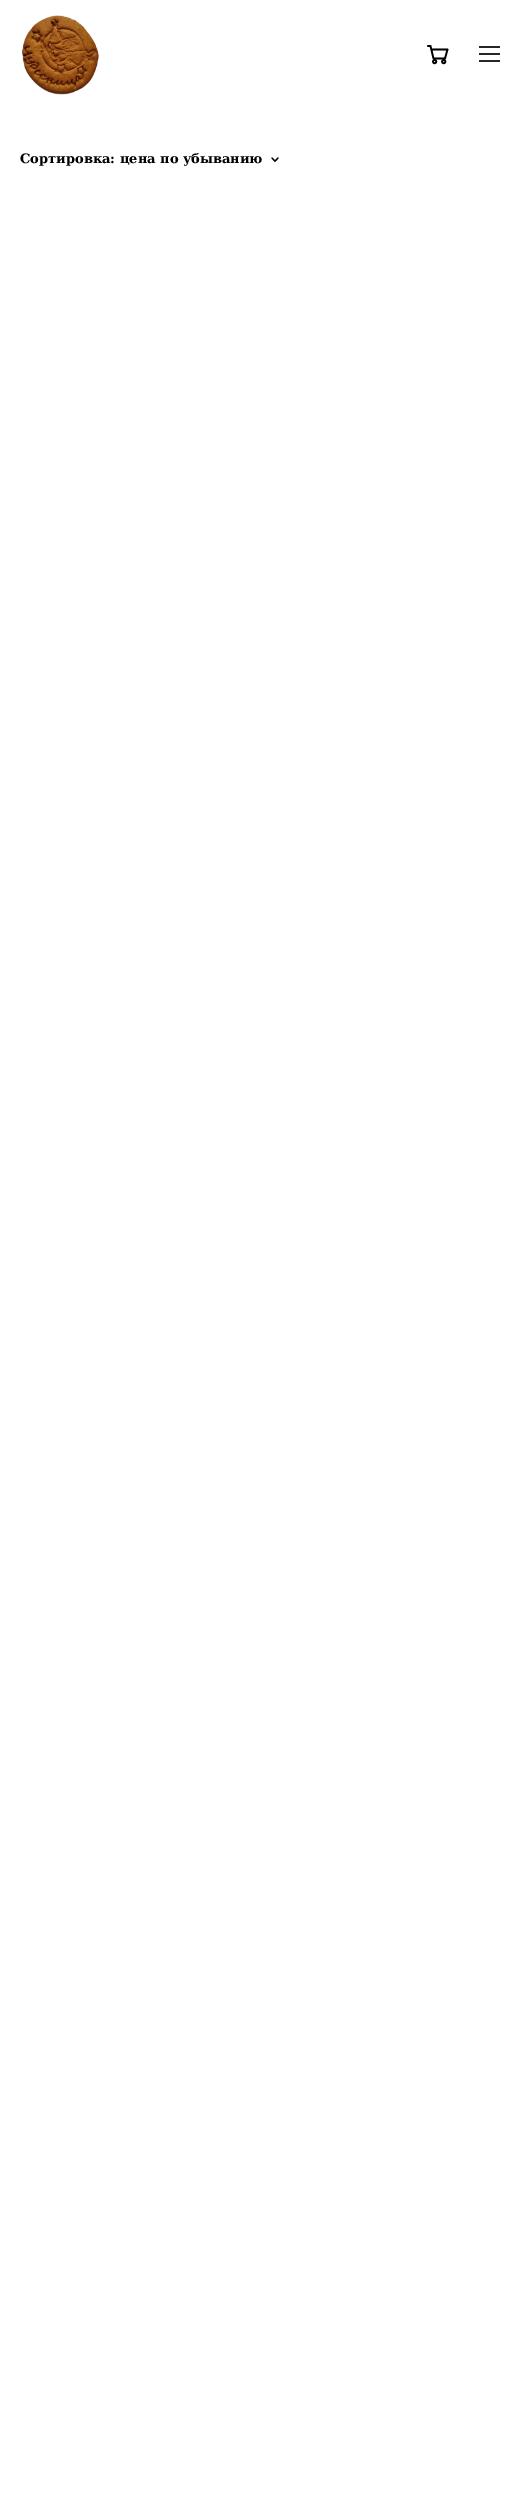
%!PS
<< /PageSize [520 2501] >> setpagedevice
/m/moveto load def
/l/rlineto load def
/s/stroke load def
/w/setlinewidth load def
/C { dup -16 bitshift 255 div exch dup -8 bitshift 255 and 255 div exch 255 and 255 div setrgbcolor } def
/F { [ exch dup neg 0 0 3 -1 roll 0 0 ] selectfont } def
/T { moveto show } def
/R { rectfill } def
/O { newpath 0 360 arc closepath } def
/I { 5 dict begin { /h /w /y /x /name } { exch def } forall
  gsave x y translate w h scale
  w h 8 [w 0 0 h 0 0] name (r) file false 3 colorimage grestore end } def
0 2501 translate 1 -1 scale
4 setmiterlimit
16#FFFFFF C
0 0 520 2501 R
(1.rgb) 22 15 77 80 I
16#000000 C
1.7 w
1 setlinecap
1 setlinejoin
428 46 m 2.5 0 l 3 12.5 l 11.5 0 l 2.5 -9 l -15.5 0 l s
0 setlinecap
0 setlinejoin
434.6 61.6 1.6 O s
443.7 61.6 1.6 O s
16#262626 C
479 46 21 2 R
479 53 21 2 R
479 60 21 2 R
/DejaVuSerif-Bold 13 F
16#000000 C
(Сортировка: цена по убыванию) 20 163 T
(2.rgb) 271 157 8 5 I
showpage
